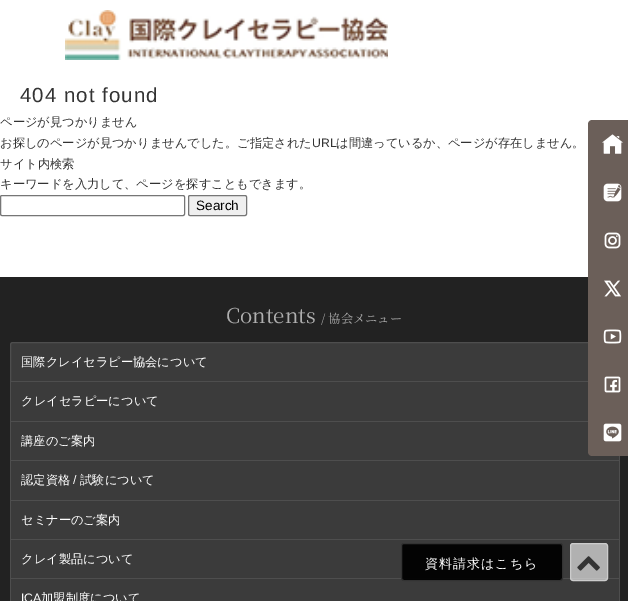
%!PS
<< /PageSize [628 601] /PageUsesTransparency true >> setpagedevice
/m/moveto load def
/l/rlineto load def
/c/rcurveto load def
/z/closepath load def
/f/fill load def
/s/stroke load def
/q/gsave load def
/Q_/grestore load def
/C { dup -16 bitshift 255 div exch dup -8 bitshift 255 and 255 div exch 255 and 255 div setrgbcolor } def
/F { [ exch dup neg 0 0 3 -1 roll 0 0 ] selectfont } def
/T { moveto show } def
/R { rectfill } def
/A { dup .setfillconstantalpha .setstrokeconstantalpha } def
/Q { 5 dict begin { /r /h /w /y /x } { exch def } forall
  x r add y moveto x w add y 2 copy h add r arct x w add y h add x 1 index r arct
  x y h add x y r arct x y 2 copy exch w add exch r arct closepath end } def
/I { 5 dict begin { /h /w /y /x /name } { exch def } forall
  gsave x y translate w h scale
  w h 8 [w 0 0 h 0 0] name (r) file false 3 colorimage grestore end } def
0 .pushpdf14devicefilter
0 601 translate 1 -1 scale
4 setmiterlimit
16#FFFFFF C
0 0 628 601 R
(1.rgb) 65 10 323 50 I
/LiberationSans-Regular 20.5 F
16#333333 C
20 102 m 1 0 (404 not found) ashow
/WenQuanYiZenHei-Medium 12.25 F
(ページが見つかりません) 0 126 T
(お探しのページが見つかりませんでした。ご指定された) 0 147 T
/LiberationSans-Regular 12.25 F
(URL) 312 147 T
/WenQuanYiZenHei-Medium 12.25 F
(は間違っているか、ページが存在しません。) 336 147 T
(サイト内検索) 0 168 T
(キーワードを入力して、ページを探すこともできます。) 0 188 T
16#767676 C
.5 195.5 184 20 1.5 Q s
16#EFEFEF C
188.5 195.5 58 20 1.5 Q q f Q_
16#767676 C
s
/LiberationSans-Regular 13.5 F
16#000000 C
(Search) 196 210 T
16#6B5F59 C
592 120 m 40 0 l 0 48 l -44 0 l 0 -44 l 0 -2 2 -4 4 -4 c z f
(2.rgb) 602 134 21 20 I
16#222222 C
0 277 628 324 R
16#3B3B3B C
13 342.5 m 604 0 l 1.5 0 2.5 1 2.5 2.5 c 0 36.5 l -609 0 l 0 -36.5 l 0 -1.5 1 -2.5 2.5 -2.5 c z q f Q_
16#4E4E4E C
s
16#6B5F59 C
588 168 40 240 R
(3.rgb) 603 183 19 19 I
(4.rgb) 604 232 17 17 I
(5.rgb) 604 280 17 17 I
(6.rgb) 603 329 19 15 I
(7.rgb) 604 376 17 17 I
16#3B3B3B C
11 422 608 38 R
16#6B5F59 C
588 408 m 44 0 l 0 48 l -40 0 l -2 0 -4 -2 -4 -4 c z f
(8.rgb) 603 423 19 19 I
/NotoSerifJP-Regular 20.5 F
16#AFAFAF C
(Contents) 226 323 T
/NotoSerifJP-Regular 12.25 F
(/ 協会メニュー) 321 323 T
/WenQuanYiZenHei-Medium 12.25 F
16#FFFFFF C
(国際クレイセラピー協会について) 21 366 T
16#3B3B3B C
11 382 577 39 R
16#4E4E4E C
10 421 578 1 R
10 382 1 40 R
16#FFFFFF C
(クレイセラピーについて) 21 405 T
16#4E4E4E C
619 456 1 145 R
10 460 610 1 R
10 422 1 39 R
16#FFFFFF C
(講座のご案内) 21 445 T
16#3B3B3B C
11 461 608 39 R
16#4E4E4E C
10 500 610 1 R
10 461 1 40 R
16#FFFFFF C
(認定資格) 21 484 T
/LiberationSans-Regular 12.25 F
(/) 73 484 T
/WenQuanYiZenHei-Medium 12.25 F
(試験について) 80 484 T
16#3B3B3B C
11 501 608 38 R
16#4E4E4E C
10 539 610 1 R
10 501 1 39 R
16#FFFFFF C
(セミナーのご案内) 21 524 T
16#3B3B3B C
11 540 608 38 R
16#4E4E4E C
10 578 610 1 R
10 540 1 61 R
16#FFFFFF C
(クレイ製品について) 21 563 T
16#3B3B3B C
11 579 608 22 R
/LiberationSans-Regular 12.25 F
16#FFFFFF C
(ICA) 21 602 T
/WenQuanYiZenHei-Medium 12.25 F
(加盟制度について) 41 602 T
0.95 A
16#000000 C
401.5 543.5 161 37 2.5 Q f
1 A
16#333333 C
401.5 543.5 161 37 2.5 Q s
/WenQuanYiZenHei-Medium 13 F
16#FFFFFF C
425 568 m 1 0 (資料請求はこちら) ashow
0.6 A
570.5 543.5 37 37 2.5 Q f
1 A
16#CCCCCC C
570.5 543.5 37 37 2.5 Q s
(9.rgb) 577 556 23 15 I
.poppdf14devicefilter showpage
